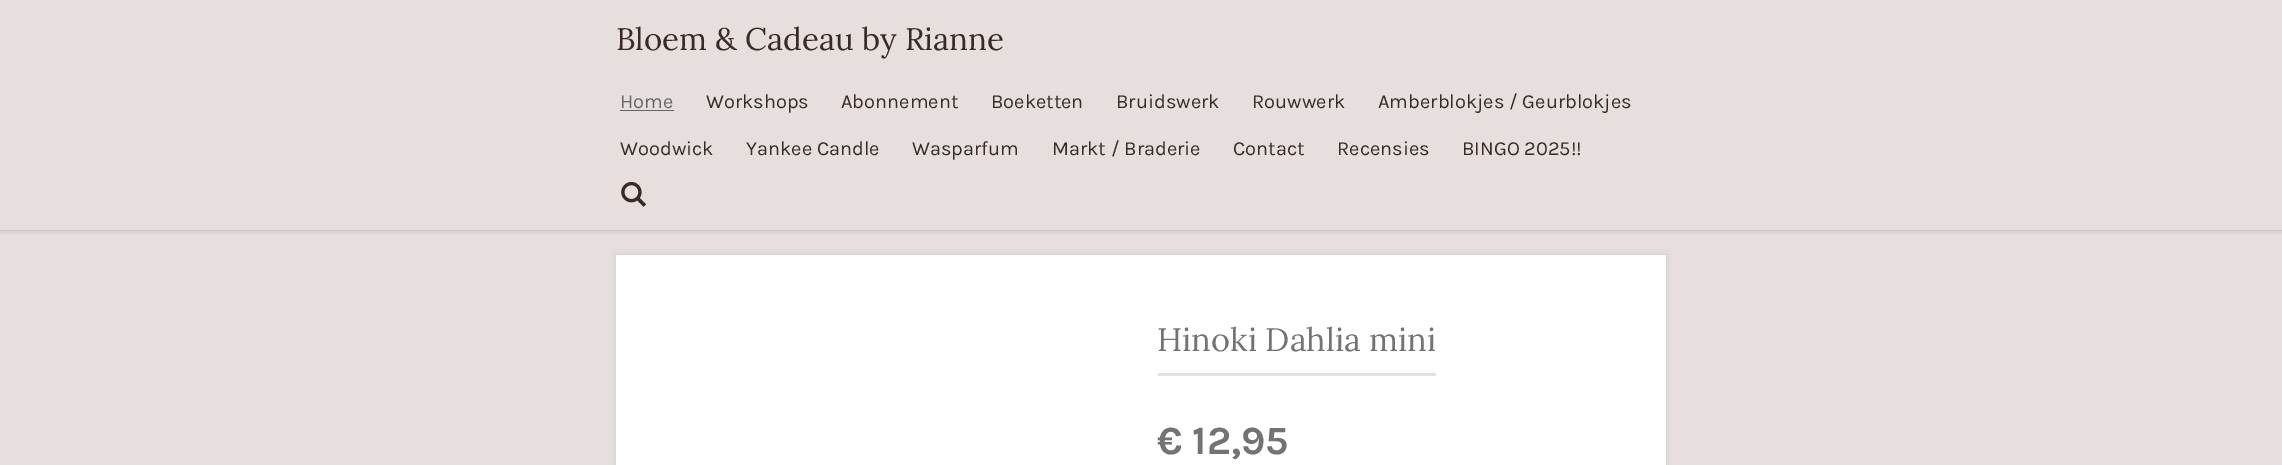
%!PS
<< /PageSize [2282 465] /PageUsesTransparency true >> setpagedevice
/q/gsave load def
/Q_/grestore load def
/C { dup -16 bitshift 255 div exch dup -8 bitshift 255 and 255 div exch 255 and 255 div setrgbcolor } def
/F { [ exch dup neg 0 0 3 -1 roll 0 0 ] selectfont } def
/T { moveto show } def
/R { rectfill } def
/A { dup .setfillconstantalpha .setstrokeconstantalpha } def
/Q { 5 dict begin { /r /h /w /y /x } { exch def } forall
  x r add y moveto x w add y 2 copy h add r arct x w add y h add x 1 index r arct
  x y h add x y r arct x y 2 copy exch w add exch r arct closepath end } def
/S { 12 dict begin { /a /b /q /h /w /y /x } { exch def } forall gsave /was 0 def
  9 -2 -9 { dup b mul 4 div /e exch def 1 sub .425 mul 2.718 exch exp 1 add a .99 .min exch div /now exch def
    1 1 now sub 1 was sub div sub A /was now def
    w h .min e 2 mul add 0 gt { x e sub y e sub w e 2 mul add h e 2 mul add
      q e add b .6 mul add w h .min 2 div e add .min 0 .max Q fill } if } for grestore end } def
/I { 5 dict begin { /h /w /y /x /name } { exch def } forall
  gsave x y translate w h scale
  w h 8 [w 0 0 h 0 0] name (r) file false 3 colorimage grestore end } def
0 .pushpdf14devicefilter
0 465 translate 1 -1 scale
4 setmiterlimit
16#E7DFDD C
0 0 2282 465 R
q
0 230 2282 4 rectclip
16#000000 C
0 0 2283 230 0 3 .2 S
Q_
/Lora-Regular 31.25 F
16#382B27 C
(Bloem & Cadeau by Rianne) 616 50 T
/Karla-Regular 20 F
16#686463 C
(Home) 620 108 T
620 110 54 1 R
16#382B27 C
(Workshops) 706 108 T
(Abonnement) 841 108 T
(Boeketten) 991 108 T
(Bruidswerk) 1116 108 T
(Rouwwerk) 1252 108 T
(Amberblokjes / Geurblokjes) 1378 108 T
(Woodwick) 620 155 T
(Yankee Candle) 746 155 T
(Wasparfum) 912 155 T
(Markt / Braderie) 1052 155 T
(Contact) 1233 155 T
(Recensies) 1337 155 T
(BINGO 2025!!) 1462 155 T
(1.rgb) 621 181 26 26 I
16#000000 C
616 255 1050 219 0 3 .1 S
16#FFFFFF C
616 255 1050 210 R
16#E7DFDD C
1158 373 278 3 R
/Lora-Regular 32.5 F
16#737373 C
(Hinoki Dahlia mini) 1157 351 T
/Karla-Bold 40 F
(€ 12,95) 1157 454 T
.poppdf14devicefilter showpage
